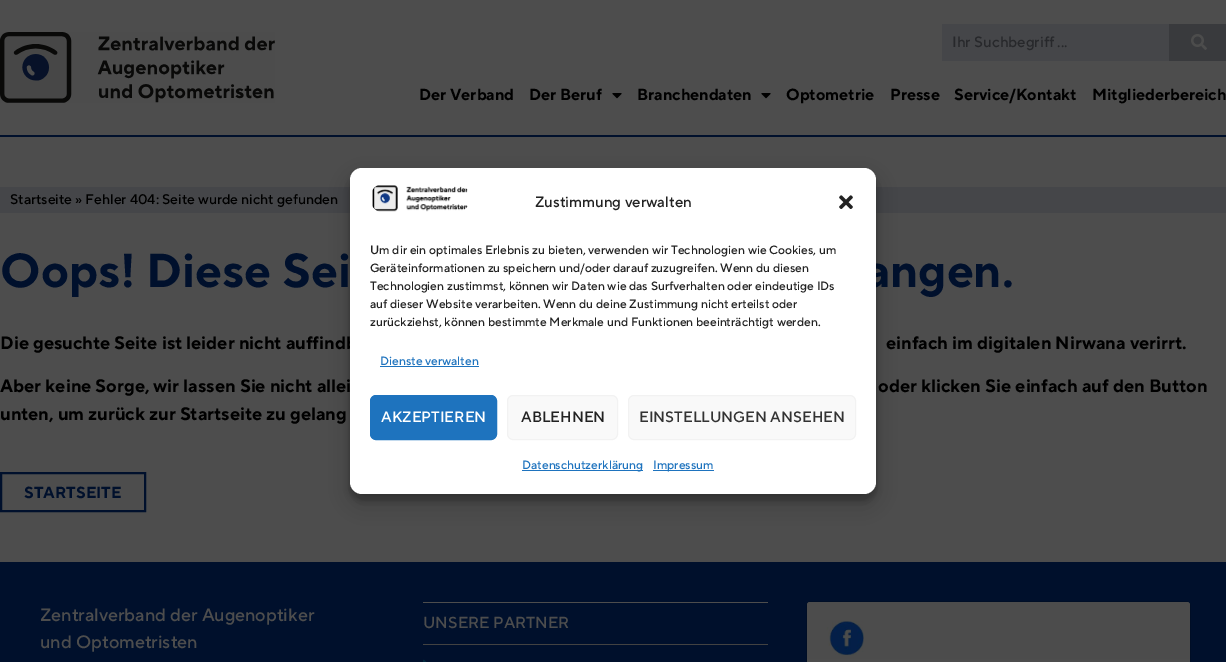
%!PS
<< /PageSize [1226 662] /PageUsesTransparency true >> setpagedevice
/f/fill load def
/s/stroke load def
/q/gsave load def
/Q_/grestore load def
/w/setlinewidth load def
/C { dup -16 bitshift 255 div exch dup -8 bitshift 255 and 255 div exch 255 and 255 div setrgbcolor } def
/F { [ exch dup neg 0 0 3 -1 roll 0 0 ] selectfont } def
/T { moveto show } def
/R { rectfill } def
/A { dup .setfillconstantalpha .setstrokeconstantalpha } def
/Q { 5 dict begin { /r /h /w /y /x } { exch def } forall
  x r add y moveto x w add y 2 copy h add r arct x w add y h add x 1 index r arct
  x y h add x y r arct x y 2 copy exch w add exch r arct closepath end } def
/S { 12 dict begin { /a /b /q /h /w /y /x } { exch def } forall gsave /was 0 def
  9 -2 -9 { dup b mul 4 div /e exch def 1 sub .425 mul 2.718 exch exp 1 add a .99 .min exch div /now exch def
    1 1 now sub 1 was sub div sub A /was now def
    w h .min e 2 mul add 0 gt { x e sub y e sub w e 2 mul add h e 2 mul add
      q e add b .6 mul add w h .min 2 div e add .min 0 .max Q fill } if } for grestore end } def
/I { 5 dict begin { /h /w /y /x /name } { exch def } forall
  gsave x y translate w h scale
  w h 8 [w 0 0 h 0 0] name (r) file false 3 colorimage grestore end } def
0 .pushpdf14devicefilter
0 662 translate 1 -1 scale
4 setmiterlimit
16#4D4D4D C
0 0 1226 662 R
(1.rgb) 0 32 275 71 I
16#454649 C
942 24 227 37 R
/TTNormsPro-Medium 15 F
16#27282B C
(Ihr Suchbegriff ...) 952 47 T
16#393A3D C
1169 24 57 37 R
(2.rgb) 1191 34 16 16 I
/TTNormsPro-Bold 16 F
16#000000 C
(Der Verband) 419 100 T
(Der Beruf) 529 100 T
(3.rgb) 612 93 10 6 I
(Branchendaten) 637 100 T
(3.rgb) 761 93 10 6 I
(Optometrie) 786 100 T
(Presse) 890 100 T
(Service/Kontakt) 954 100 T
(Mitgliederbereich) 1092 100 T
16#00102C C
0 135 1226 2 R
16#454649 C
0 187 1226 26 R
/TTNormsPro-Medium 14 F
16#000000 C
(Startseite » Fehler 404: Seite wurde nicht gefunden) 10 204 T
/TTNormsPro-Bold 47.5 F
16#00102C C
(Oops! Diese Sei) 0 287 T
(angen.) 865 287 T
/TTNormsPro-Bold 18 F
16#000000 C
(Die gesuchte Seite ist leider nicht auffindb) 0 349 T
(einfach im digitalen Nirwana verirrt.) 886 349 T
(Aber keine Sorge, wir lassen Sie nicht allei) 0 392 T
(oder klicken Sie einfach auf den Button) 878 392 T
(unten, um zurück zur Startseite zu gelang) 0 420 T
16#00102C C
2 w
1 473 144 38 rectstroke
/TTNormsPro-Bold 16 F
(STARTSEITE) 24 498 T
16#000000 C
350 174 526 326 12 3 .23 S
350 178 526 326 12 10 .19 S
16#FFFFFF C
350 168 526 326 12 Q f
(4.rgb) 372 185 96 27 I
/TTNormsPro-Medium 15 F
16#222222 C
(Zustimmung verwalten) 535 207 T
(5.rgb) 839 195 14 14 I
/TTNormsPro-Medium 12 F
(Um dir ein optimales Erlebnis zu bieten, verwenden wir Technologien wie Cookies, um) 370 254 T
(Geräteinformationen zu speichern und/oder darauf zuzugreifen. Wenn du diesen) 370 272 T
(Technologien zustimmst, können wir Daten wie das Surfverhalten oder eindeutige IDs) 370 290 T
(auf dieser Website verarbeiten. Wenn du deine Zustimmung nicht erteilst oder) 370 308 T
(zurückziehst, können bestimmte Merkmale und Funktionen beeinträchtigt werden.) 370 326 T
16#1E73BE C
(Dienste verwalten) 380 365 T
380 366 99 1 R
370.5 395.5 126 44 5.5 Q q f Q_
1 w
s
/TTNormsPro-Medium 15 F
16#FFFFFF C
(AKZEPTIEREN) 381 422 T
16#F9F9F9 C
507.5 395.5 110 44 5.5 Q q f Q_
16#F2F2F2 C
s
16#222222 C
(ABLEHNEN) 521 422 T
16#F9F9F9 C
628.5 395.5 227 44 5.5 Q q f Q_
16#F2F2F2 C
s
16#333333 C
(EINSTELLUNGEN ANSEHEN) 639 422 T
16#1E73BE C
522 470 121 1 R
/TTNormsPro-Medium 12 F
(Datenschutzerklärung) 522 469 T
653 470 61 1 R
(Impressum) 653 469 T
16#00102C C
0 562 1226 100 R
/TTNormsPro-Medium 18 F
16#4D4D4D C
(Zentralverband der Augenoptiker) 40 621 T
(und Optometristen) 40 648 T
423 602 345 1 R
/TTNormsPro-Medium 16 F
(UNSERE PARTNER) 423 628 T
16#424242 C
423 644 345 1 R
(6.rgb) 423 659 4 3 I
16#000000 C
807 602 383 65 3 .5 .5 S
16#4D4D4D C
807 602 383 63 3 Q f
(7.rgb) 807 602 383 57 I
.poppdf14devicefilter showpage
